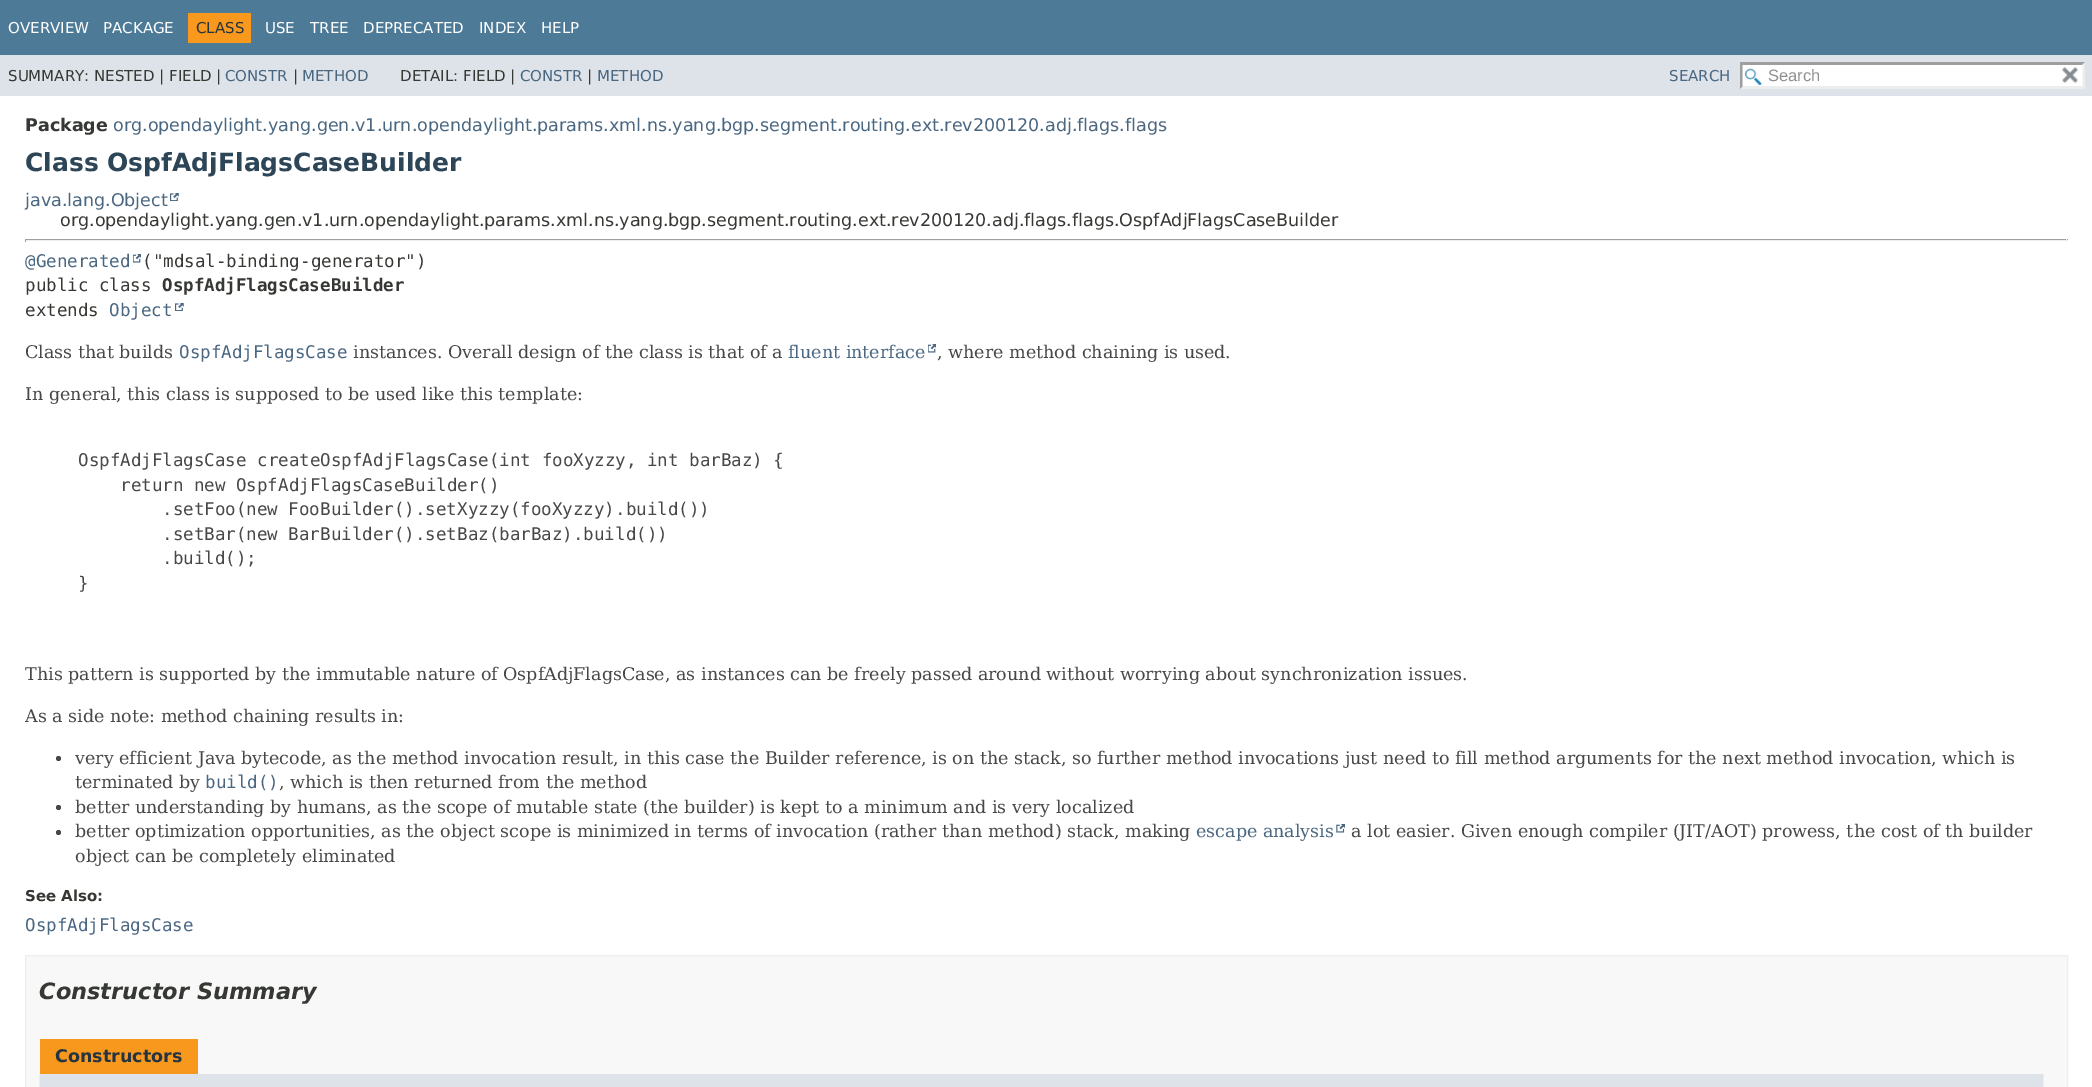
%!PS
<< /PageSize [2092 1087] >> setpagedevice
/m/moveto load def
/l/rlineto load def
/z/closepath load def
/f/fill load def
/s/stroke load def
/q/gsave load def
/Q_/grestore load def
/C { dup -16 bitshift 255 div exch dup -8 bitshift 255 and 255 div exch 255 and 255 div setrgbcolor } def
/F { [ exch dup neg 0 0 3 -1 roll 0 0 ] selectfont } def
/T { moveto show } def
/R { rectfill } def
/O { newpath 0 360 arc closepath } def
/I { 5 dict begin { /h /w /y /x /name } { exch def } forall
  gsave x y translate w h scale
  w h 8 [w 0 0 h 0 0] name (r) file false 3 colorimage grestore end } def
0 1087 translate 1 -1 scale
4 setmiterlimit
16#FFFFFF C
0 0 2092 1087 R
16#4D7A97 C
0 0 2092 55 R
/DejaVuSans-Regular 15 F
16#FFFFFF C
(OVERVIEW) 8 33 T
(PACKAGE) 103 33 T
16#F8981D C
188 13 63 30 R
16#253441 C
(CLASS) 196 33 T
16#FFFFFF C
(USE) 265 33 T
(TREE) 310 33 T
(DEPRECATED) 363 33 T
(INDEX) 479 33 T
(HELP) 541 33 T
16#DEE3E9 C
0 55 2092 41 R
16#353833 C
(SUMMARY: NESTED | FIELD |) 8 81 T
16#4A6782 C
(CONSTR) 225 81 T
16#353833 C
(|) 293 81 T
16#4A6782 C
(METHOD) 302 81 T
16#353833 C
(DETAIL: FIELD |) 400 81 T
16#4A6782 C
(CONSTR) 520 81 T
16#353833 C
(|) 587 81 T
16#4A6782 C
(METHOD) 597 81 T
(SEARCH) 1669 81 T
16#FFFFFF C
1740 63 345 26 R
(1.rgb) 1745 68 17 17 I
16#9E9E9E C
1740 62 m 345 0 l -3 3 l -340 0 l z f
16#EDEDED C
2085 62.5 m 0 26.5 l -2.5 -3 l 0 -21 l z f
2085 89 m -345 0 l 2 -3 l 340 0 l z f
16#9E9E9E C
1740 89 m 0 -26.5 l 2.5 2.5 l 0 21 l z f
/LiberationSans-Regular 16.5 F
16#909090 C
(Search) 1768 81 T
(2.rgb) 2062 67 16 16 I
/DejaVuSans-Bold 17.5 F
16#353833 C
(Package) 25 131 T
/DejaVuSans-Regular 17.5 F
16#4A6782 C
(org.opendaylight.yang.gen.v1.urn.opendaylight.params.xml.ns.yang.bgp.segment.routing.ext.rev200120.adj.flags.flags) 113 131 T
/DejaVuSans-Bold 25 F
16#2C4557 C
(Class OspfAdjFlagsCaseBuilder) 25 171 T
/DejaVuSans-Regular 17.5 F
16#4A6782 C
(java.lang.Object) 25 206 T
(3.rgb) 170 193 9 8 I
16#353833 C
(org.opendaylight.yang.gen.v1.urn.opendaylight.params.xml.ns.yang.bgp.segment.routing.ext.rev200120.adj.flags.flags.OspfAdjFlagsCaseBuilder) 60 226 T
16#9F9F9F C
25 239 2043 1 R
16#EEEEEE C
2066 239 1 3 R
25 240 2043 1 R
16#9F9F9F C
25 239 1 3 R
/DejaVuSansMono-Regular 17.5 F
16#4A6782 C
(@Generated) 25 267 T
(4.rgb) 133 254 8 9 I
16#353833 C
(\("mdsal-binding-generator"\)) 142 267 T
(public class) 25 291 T
/DejaVuSansMono-Bold 17.5 F
(OspfAdjFlagsCaseBuilder) 162 291 T
/DejaVuSansMono-Regular 17.5 F
(extends) 25 316 T
16#4A6782 C
(Object) 109 316 T
(3.rgb) 175 303 9 8 I
/DejaVuSerif-Regular 17.5 F
16#474747 C
(Class that builds) 25 358 T
/DejaVuSansMono-Regular 17.5 F
16#4A6782 C
(OspfAdjFlagsCase) 179 358 T
/DejaVuSerif-Regular 17.5 F
16#474747 C
(instances. Overall design of the class is that of a) 353 358 T
16#4A6782 C
(fluent interface) 788 358 T
(4.rgb) 928 344 8 9 I
16#474747 C
(, where method chaining is used.) 937 358 T
(In general, this class is supposed to be used like this template:) 25 400 T
/DejaVuSansMono-Regular 17.5 F
(OspfAdjFlagsCase createOspfAdjFlagsCase\(int fooXyzzy, int barBaz\) {) 78 466 T
(return new OspfAdjFlagsCaseBuilder\(\)) 120 491 T
(.setFoo\(new FooBuilder\(\).setXyzzy\(fooXyzzy\).build\(\)\)) 162 515 T
(.setBar\(new BarBuilder\(\).setBaz\(barBaz\).build\(\)\)) 162 540 T
(.build\(\);) 162 564 T
(}) 78 589 T
/DejaVuSerif-Regular 17.5 F
(This pattern is supported by the immutable nature of OspfAdjFlagsCase, as instances can be freely passed around without worrying about synchronization issues.) 25 680 T
(As a side note: method chaining results in:) 25 722 T
58.5 758.5 2.5 O f
(very efficient Java bytecode, as the method invocation result, in this case the Builder reference, is on the stack, so further method invocations just need to fill method arguments for the next method invocation, which is) 75 764 T
(terminated by) 75 788 T
/DejaVuSansMono-Regular 17.5 F
16#4A6782 C
(build\(\)) 205 788 T
/DejaVuSerif-Regular 17.5 F
16#474747 C
(, which is then returned from the method) 279 788 T
58.5 807.5 2.5 O f
(better understanding by humans, as the scope of mutable state \(the builder\) is kept to a minimum and is very localized) 75 813 T
58.5 832.5 2.5 O f
(better optimization opportunities, as the object scope is minimized in terms of invocation \(rather than method\) stack, making) 75 837 T
16#4A6782 C
(escape analysis) 1196 837 T
(5.rgb) 1336 824 9 9 I
16#474747 C
(a lot easier. Given enough compiler \(JIT/AOT\) prowess, the cost of th builder) 1351 837 T
(object can be completely eliminated) 75 862 T
/DejaVuSans-Bold 15 F
16#353833 C
(See Also:) 25 901 T
/DejaVuSansMono-Regular 17.5 F
16#4A6782 C
(OspfAdjFlagsCase) 25 931 T
16#F8F8F8 C
25.5 955.5 m 2042 0 l 0 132 l -2042 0 l z q f Q_
16#EDEDED C
s
/DejaVuSans-BoldItalic 22.5 F
16#353833 C
(Constructor Summary) 39 999 T
16#F8981D C
40 1039 158 35 R
/DejaVuSans-Bold 17.5 F
16#253441 C
(Constructors) 55 1062 T
16#EDEDED C
2043 1074 1 13 R
39 1074 1 13 R
16#DEE3E9 C
40 1074 2003 13 R
showpage
